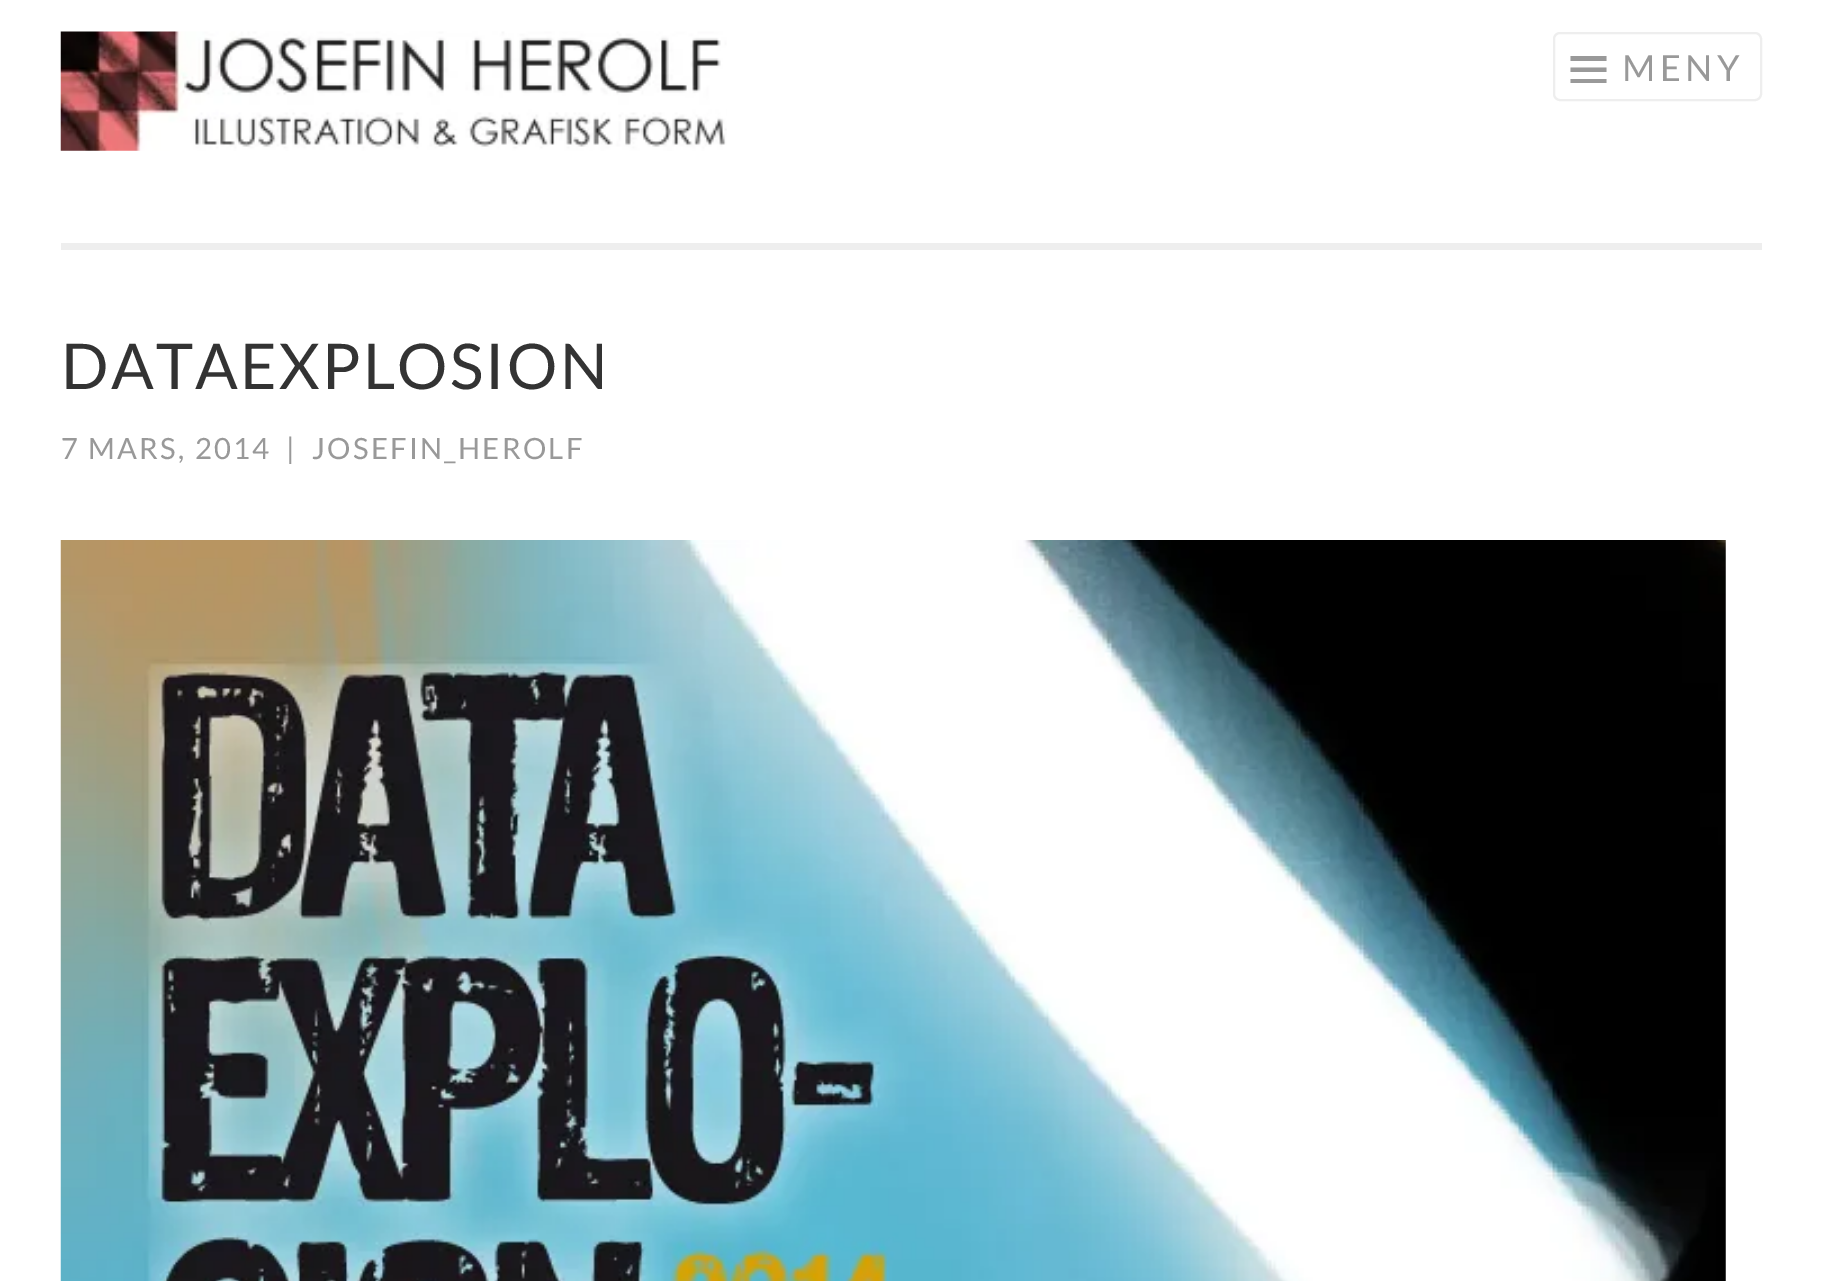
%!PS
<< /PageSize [1821 1281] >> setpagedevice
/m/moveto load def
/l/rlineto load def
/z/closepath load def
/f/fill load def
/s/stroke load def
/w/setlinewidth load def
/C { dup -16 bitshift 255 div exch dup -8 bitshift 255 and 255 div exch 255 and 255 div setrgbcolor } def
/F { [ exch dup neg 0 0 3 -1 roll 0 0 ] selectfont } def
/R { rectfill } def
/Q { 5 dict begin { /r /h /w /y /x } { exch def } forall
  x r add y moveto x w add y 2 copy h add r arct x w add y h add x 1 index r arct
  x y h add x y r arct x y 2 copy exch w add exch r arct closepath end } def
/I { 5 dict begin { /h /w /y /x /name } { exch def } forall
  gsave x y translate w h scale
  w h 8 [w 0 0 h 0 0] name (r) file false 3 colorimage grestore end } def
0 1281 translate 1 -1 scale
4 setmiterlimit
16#FFFFFF C
0 0 1821 1281 R
16#EEEEEE C
61 243 1701 7 R
(1.rgb) 60 31 667 120 I
2 w
1554 33 207 67 6 Q s
16#999999 C
1570.5 83 m 0 -4 l 36 0 l 0 4 l z 1570.5 56 m 36 0 l 0 5 l -36 0 l z 1570.5 72 m 0 -4.5 l 36 0 l 0 4.5 l z f
/Lato-Regular 36 F
1622 81 m 4.5 0 (MENY) ashow
/Lato-Regular 63 F
16#333333 C
61 389 m 2.25 0 (DATAEXPLOSION) ashow
/Lato-Regular 29.25 F
16#999999 C
61 459 m 2.25 0 (7 MARS, 2014) ashow
286 459 m 2.25 0 (|) ashow
312 459 m 2.25 0 (JOSEFIN_HEROLF) ashow
(2.rgb) 60 540 1666 741 I
showpage
